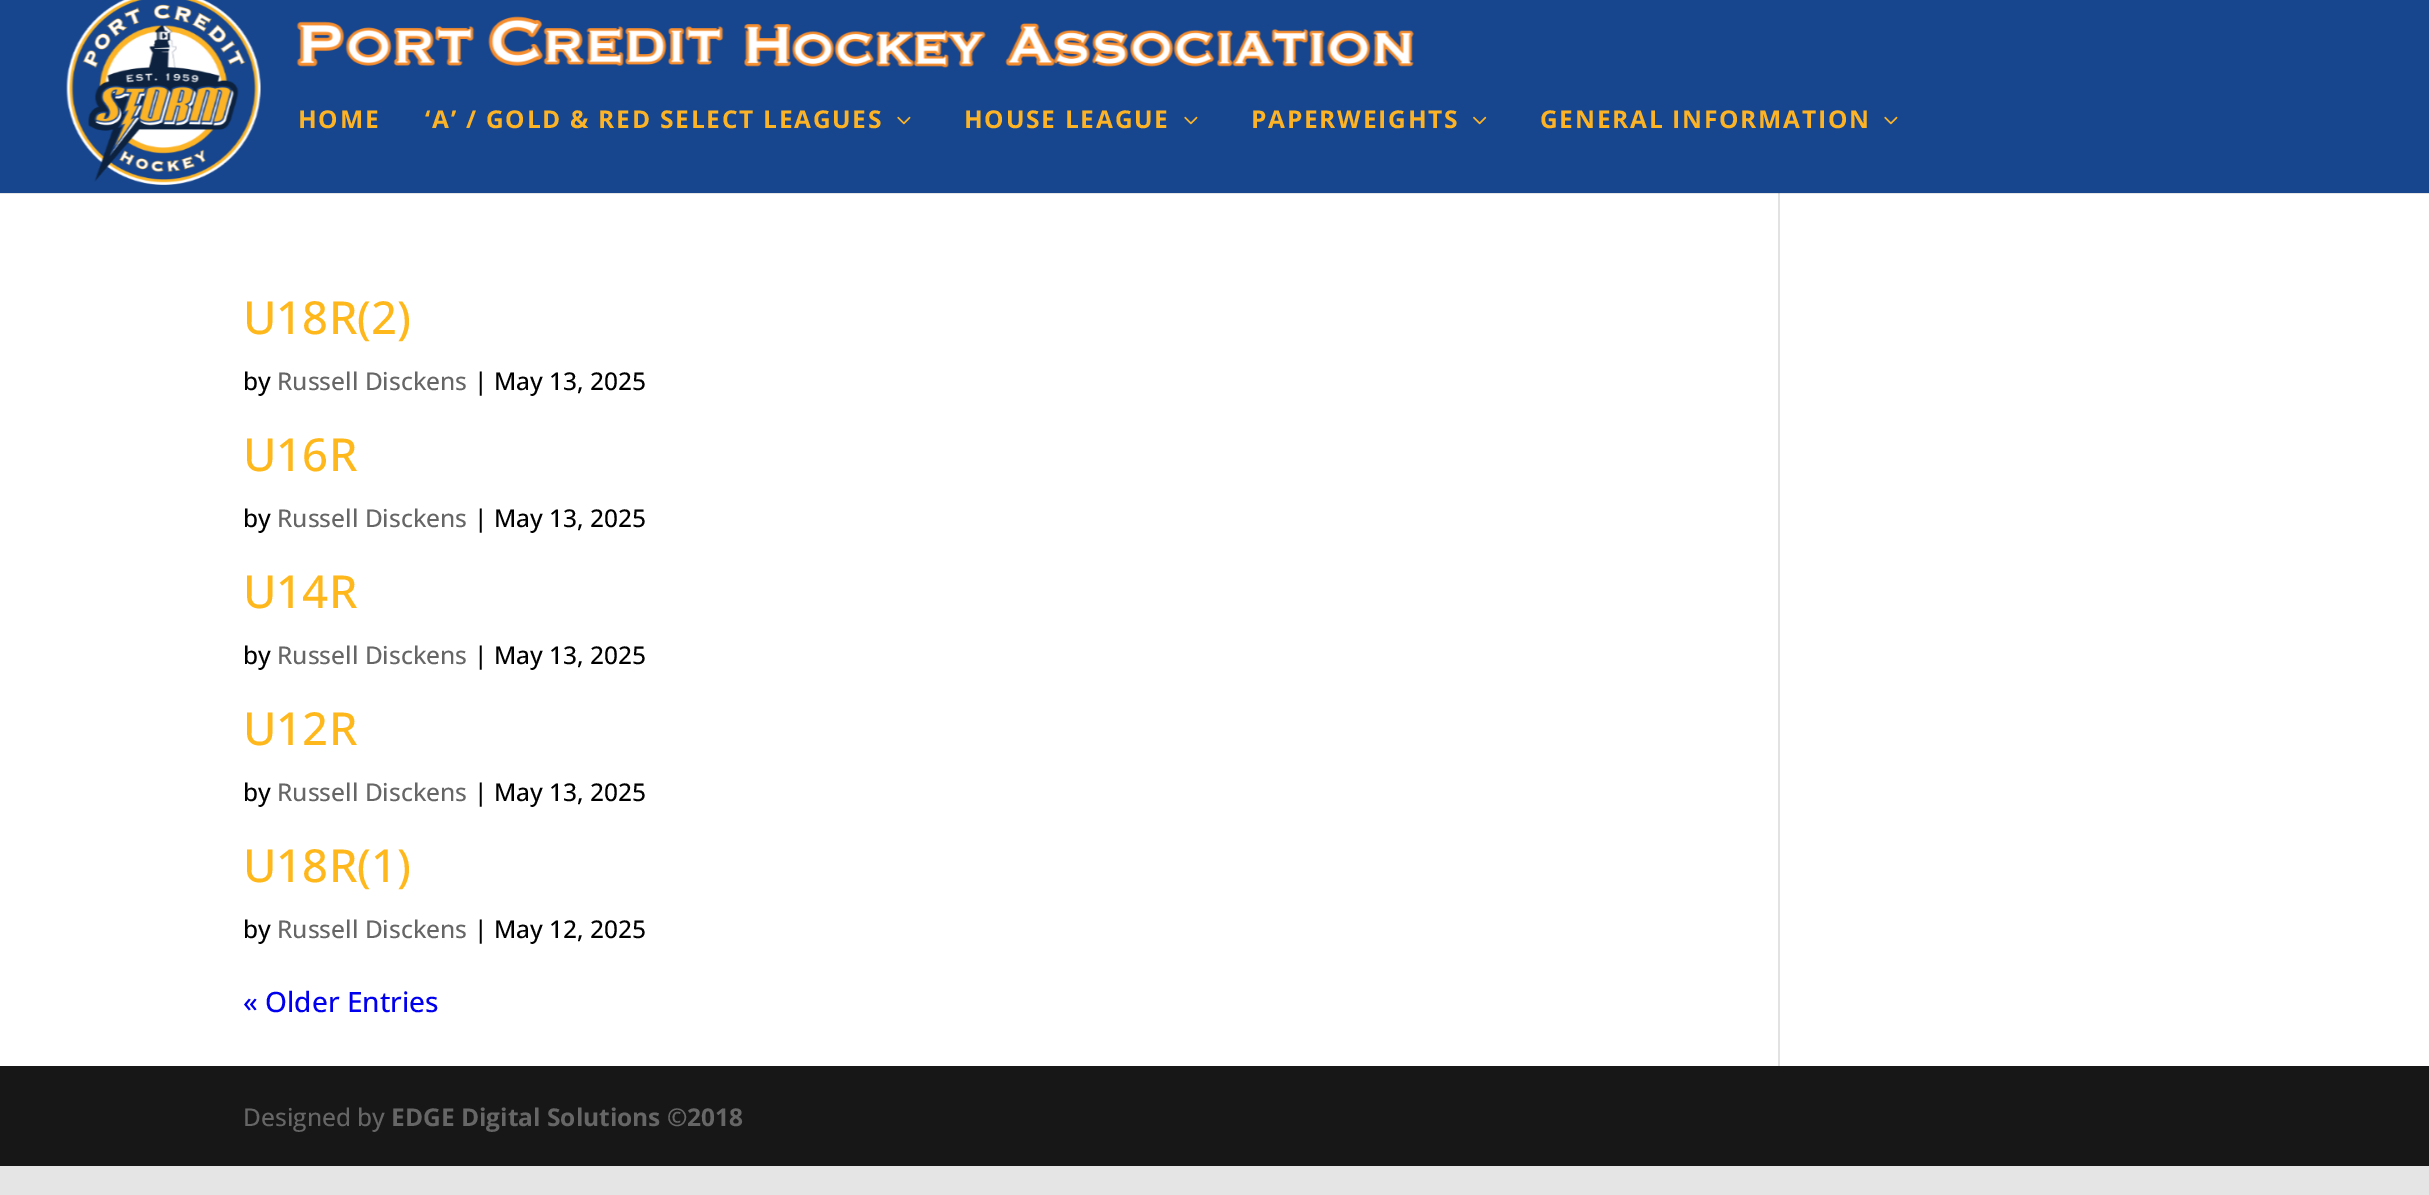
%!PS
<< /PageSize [2429 1195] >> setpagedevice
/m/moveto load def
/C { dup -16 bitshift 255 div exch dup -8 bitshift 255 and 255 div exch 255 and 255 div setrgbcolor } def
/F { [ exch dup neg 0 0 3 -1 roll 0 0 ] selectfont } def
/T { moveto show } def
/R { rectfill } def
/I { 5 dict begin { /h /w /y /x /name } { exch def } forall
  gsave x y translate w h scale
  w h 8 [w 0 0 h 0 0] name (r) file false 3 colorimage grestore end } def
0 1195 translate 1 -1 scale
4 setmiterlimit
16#E5E5E5 C
0 0 2429 1195 R
16#17468F C
0 0 2429 193 R
(1.rgb) 66 0 1348 185 I
/OpenSans-Bold 24.5 F
16#FCB426 C
298 128 m 1.75 0 (HOME) ashow
425 128 m 1.75 0 (‘A’ / GOLD & RED SELECT LEAGUES) ashow
(2.rgb) 897 116 14 9 I
964 128 m 1.75 0 (HOUSE LEAGUE) ashow
(2.rgb) 1184 116 14 9 I
1251 128 m 1.75 0 (PAPERWEIGHTS) ashow
(3.rgb) 1473 116 14 9 I
1540 128 m 1.75 0 (GENERAL INFORMATION) ashow
(2.rgb) 1884 116 14 9 I
16#FFFFFF C
0 194 2429 872 R
/OpenSans-Medium 45.5 F
16#FFB81C C
(U18R\(2\)) 243 334 T
/OpenSans-Medium 24.5 F
16#000000 C
(by) 243 390 T
16#666666 C
(Russell Disckens) 277 390 T
16#000000 C
(| May 13, 2025) 474 390 T
/OpenSans-Medium 45.5 F
16#FFB81C C
(U16R) 243 471 T
/OpenSans-Medium 24.5 F
16#000000 C
(by) 243 527 T
16#666666 C
(Russell Disckens) 277 527 T
16#000000 C
(| May 13, 2025) 474 527 T
/OpenSans-Medium 45.5 F
16#FFB81C C
(U14R) 243 608 T
/OpenSans-Medium 24.5 F
16#000000 C
(by) 243 664 T
16#666666 C
(Russell Disckens) 277 664 T
16#000000 C
(| May 13, 2025) 474 664 T
/OpenSans-Medium 45.5 F
16#FFB81C C
(U12R) 243 745 T
/OpenSans-Medium 24.5 F
16#000000 C
(by) 243 801 T
16#666666 C
(Russell Disckens) 277 801 T
16#000000 C
(| May 13, 2025) 474 801 T
/OpenSans-Medium 45.5 F
16#FFB81C C
(U18R\(1\)) 243 882 T
/OpenSans-Medium 24.5 F
16#000000 C
(by) 243 938 T
16#666666 C
(Russell Disckens) 277 938 T
16#000000 C
(| May 12, 2025) 474 938 T
/OpenSans-Medium 28 F
16#0000EE C
(« Older Entries) 243 1012 T
16#E2E2E2 C
1778 193 2 873 R
16#CBCBCB C
1778 193 2 1 R
16#171717 C
0 1066 2429 100 R
/OpenSans-Medium 24.5 F
16#666666 C
(Designed by) 243 1126 T
/OpenSans-Bold 24.5 F
(EDGE Digital Solutions ©2018) 391 1126 T
showpage
